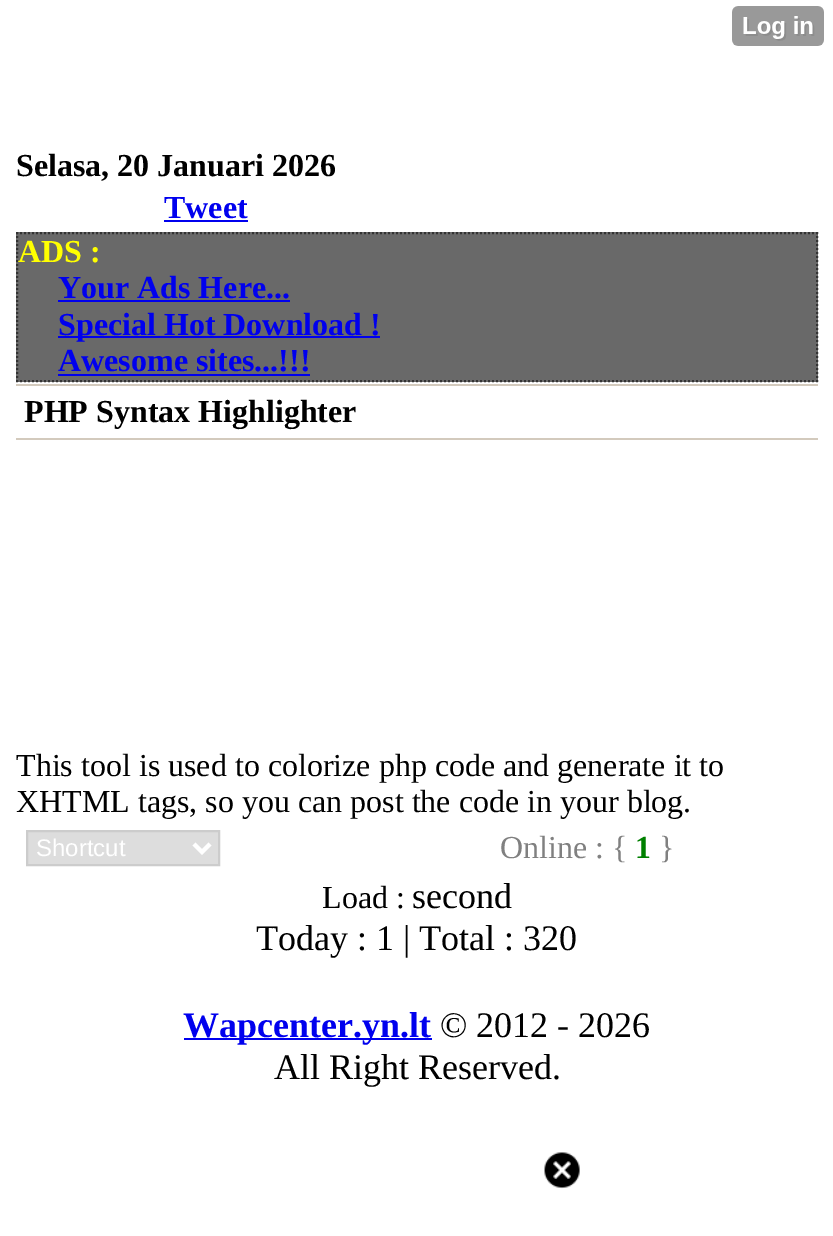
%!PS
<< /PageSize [833 1236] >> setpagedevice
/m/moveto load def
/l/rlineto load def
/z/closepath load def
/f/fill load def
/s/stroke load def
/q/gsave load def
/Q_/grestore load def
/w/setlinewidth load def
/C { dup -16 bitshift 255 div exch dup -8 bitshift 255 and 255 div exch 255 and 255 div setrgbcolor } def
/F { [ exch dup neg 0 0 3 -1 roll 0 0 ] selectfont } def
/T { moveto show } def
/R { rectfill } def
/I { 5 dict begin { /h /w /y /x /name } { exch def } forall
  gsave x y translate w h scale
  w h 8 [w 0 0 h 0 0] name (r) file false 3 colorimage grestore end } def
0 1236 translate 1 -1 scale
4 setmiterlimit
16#FFFFFF C
0 0 833 1236 R
/LiberationSerif-Bold 32 F
16#000000 C
(Selasa, 20 Januari 2026) 16 176 T
16#0000EE C
(Tweet) 164 218 T
164 220 84 2 R
16#696969 C
16 232 802 150 R
16#333333 C
2 w
[2 2] 0 setdash
16 233 m 802 0 l s
817 232 m 0 150 l s
16 381 m 802 0 l s
17 232 m 0 150 l s
16#FFFF00 C
(ADS :) 18 262 T
16#0000EE C
(Your Ads Here...) 58 298 T
58 300 232 2 R
58 336 322 2 R
(Special Hot Download !) 58 335 T
(Awesome sites...!!!) 58 371 T
58 374 252 2 R
16#D3CABD C
16 384 802 2 R
16 438 802 2 R
16#000000 C
(PHP Syntax Highlighter) 24 422 T
/LiberationSerif-Regular 32 F
(This tool is used to colorize php code and generate it to) 16 776 T
(XHTML tags, so you can post the code in your blog.) 16 812 T
16#DDDDDD C
27 831 m 192 0 l 0 34 l -192 0 l z q f Q_
16#CCCCCC C
[] 0 setdash
s
16#FFFFFF C
4 w
194 844 m 8 8 l 8 -8 l s
/LiberationSans-Regular 24 F
(Shortcut) 36 856 T
/LiberationSerif-Regular 32 F
16#808080 C
(Online : {) 500 858 T
/LiberationSerif-Bold 32 F
16#008000 C
(1) 635 858 T
/LiberationSerif-Regular 32 F
16#808080 C
(}) 659 858 T
/LiberationSerif-Regular 36 F
16#000000 C
(second) 412 908 T
(1.rgb) 732 6 92 40 I
(2.rgb) 544 1152 36 37 I
(Today : 1 | Total : 320) 256 950 T
16#0000EE C
184 1038 248 2 R
/LiberationSerif-Bold 36 F
(Wapcenter.yn.lt) 183 1037 T
/LiberationSerif-Regular 36 F
16#000000 C
(© 2012 - 2026) 440 1037 T
(All Right Reserved.) 274 1079 T
/LiberationSerif-Regular 32 F
(Load :) 322 908 T
showpage
